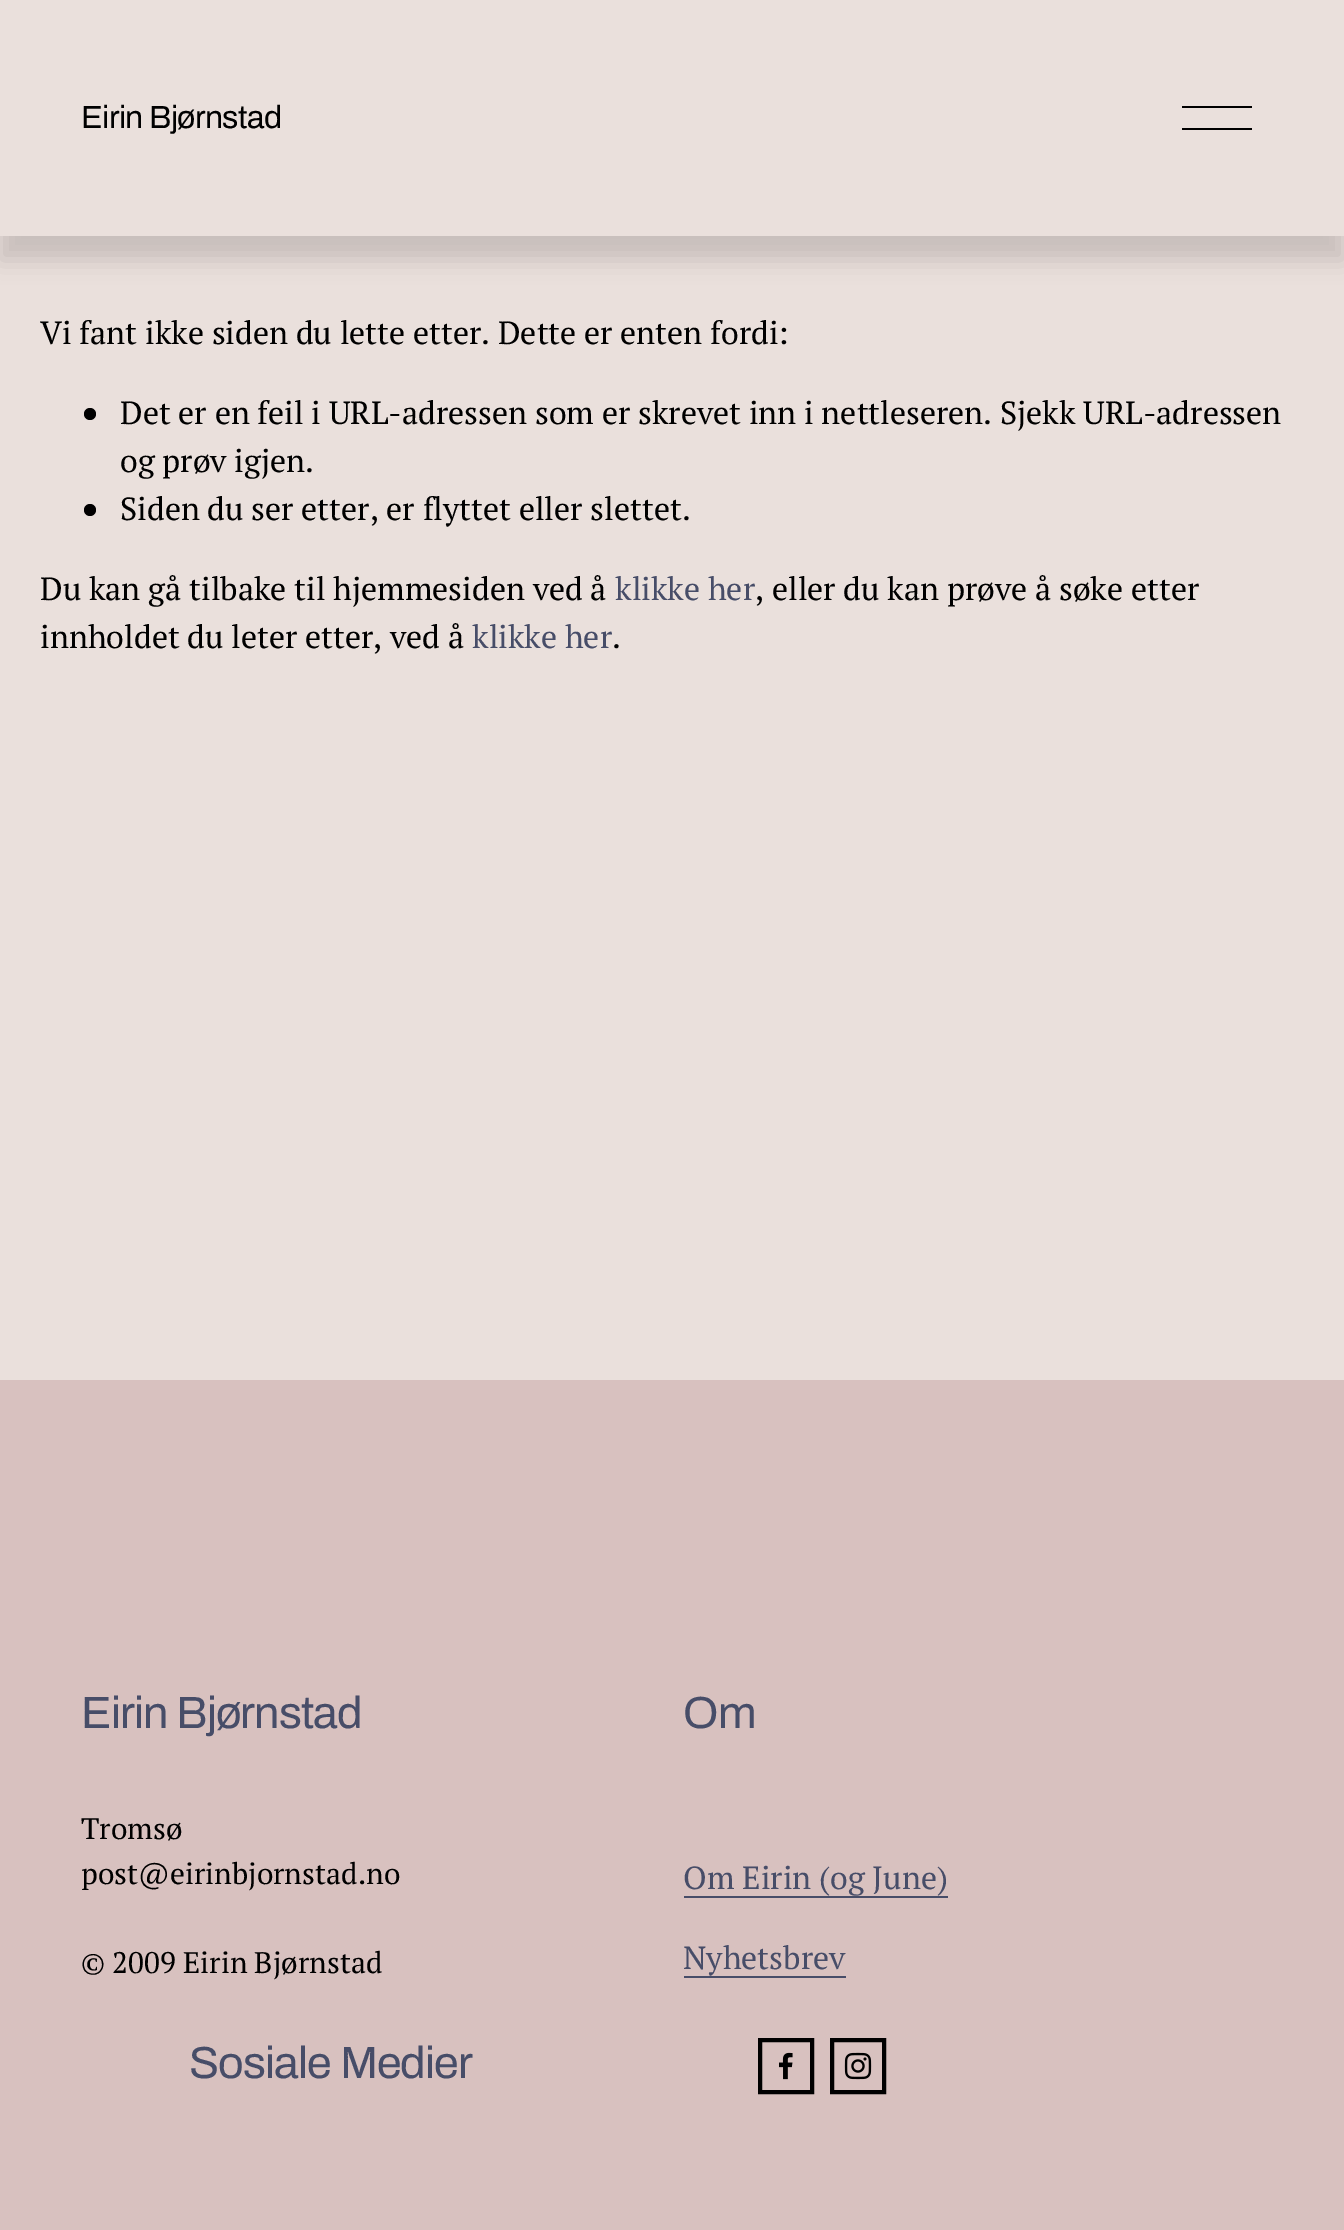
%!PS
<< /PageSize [1344 2230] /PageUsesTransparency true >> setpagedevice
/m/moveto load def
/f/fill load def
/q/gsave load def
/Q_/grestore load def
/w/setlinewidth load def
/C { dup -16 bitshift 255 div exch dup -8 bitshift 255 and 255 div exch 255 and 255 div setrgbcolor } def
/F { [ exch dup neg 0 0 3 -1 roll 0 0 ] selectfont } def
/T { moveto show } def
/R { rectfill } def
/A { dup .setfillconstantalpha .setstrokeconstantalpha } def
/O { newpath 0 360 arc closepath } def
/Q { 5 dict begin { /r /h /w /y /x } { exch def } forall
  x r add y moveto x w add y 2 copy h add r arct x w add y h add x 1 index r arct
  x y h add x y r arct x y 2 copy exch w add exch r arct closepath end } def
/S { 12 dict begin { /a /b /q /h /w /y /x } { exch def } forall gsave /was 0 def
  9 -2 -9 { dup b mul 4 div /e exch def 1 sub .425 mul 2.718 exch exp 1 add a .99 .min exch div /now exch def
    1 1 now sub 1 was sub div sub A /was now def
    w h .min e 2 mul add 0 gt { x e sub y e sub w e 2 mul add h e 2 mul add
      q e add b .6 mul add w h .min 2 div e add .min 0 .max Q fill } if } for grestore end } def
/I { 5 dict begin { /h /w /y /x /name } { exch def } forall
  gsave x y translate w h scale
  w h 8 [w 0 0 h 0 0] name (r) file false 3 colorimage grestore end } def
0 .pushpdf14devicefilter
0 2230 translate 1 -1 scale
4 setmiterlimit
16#EAE0DC C
0 0 1344 2230 R
q
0 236 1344 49 rectclip
16#C7BEBB C
0 24 1344 236 0 12 1 S
Q_
/Archivo-Regular 32 F
16#000000 C
81 128 m -.6 0 (Eirin Bjørnstad) ashow
1182 106 70 2 R
1182 128 70 2 R
/PTSerif-Regular 32 F
(Vi fant ikke siden du lette etter. Dette er enten fordi:) 40 344 T
90 414 6 O f
(Det er en feil i URL-adressen som er skrevet inn i nettleseren. Sjekk URL-adressen) 120 424 T
(og prøv igjen.) 120 472 T
90 510 6 O f
(Siden du ser etter, er flyttet eller slettet.) 120 520 T
(Du kan gå tilbake til hjemmesiden ved å) 40 600 T
16#474D68 C
(klikke her) 615 600 T
16#000000 C
(, eller du kan prøve å søke etter) 755 600 T
(innholdet du leter etter, ved å) 40 648 T
16#474D68 C
(klikke her) 472 648 T
16#000000 C
(.) 612 648 T
16#D8C1BF C
0 1380 1344 850 R
/Archivo-Regular 45 F
16#474D68 C
81 1728 m -.9 0 (Eirin Bjørnstad) ashow
/PTSerif-Regular 29.75 F
16#000000 C
(Tromsø) 81 1839 T
(post@eirinbjornstad.no) 81 1884 T
(© 2009 Eirin Bjørnstad) 81 1973 T
/Archivo-Regular 45 F
16#474D68 C
683 1728 m -.9 0 (Om) ashow
/PTSerif-Regular 32 F
(Om Eirin \(og June\)) 683 1889 T
684 1896 264 2 R
(Nyhetsbrev) 683 1969 T
684 1976 162 2 R
/Archivo-Regular 45 F
189 2078 m -.9 0 (Sosiale Medier) ashow
16#000000 C
4 w
760 2040 52 52 rectstroke
(1.rgb) 779 2052 14 28 I
832 2040 52 52 rectstroke
(2.rgb) 844 2052 28 28 I
.poppdf14devicefilter showpage
